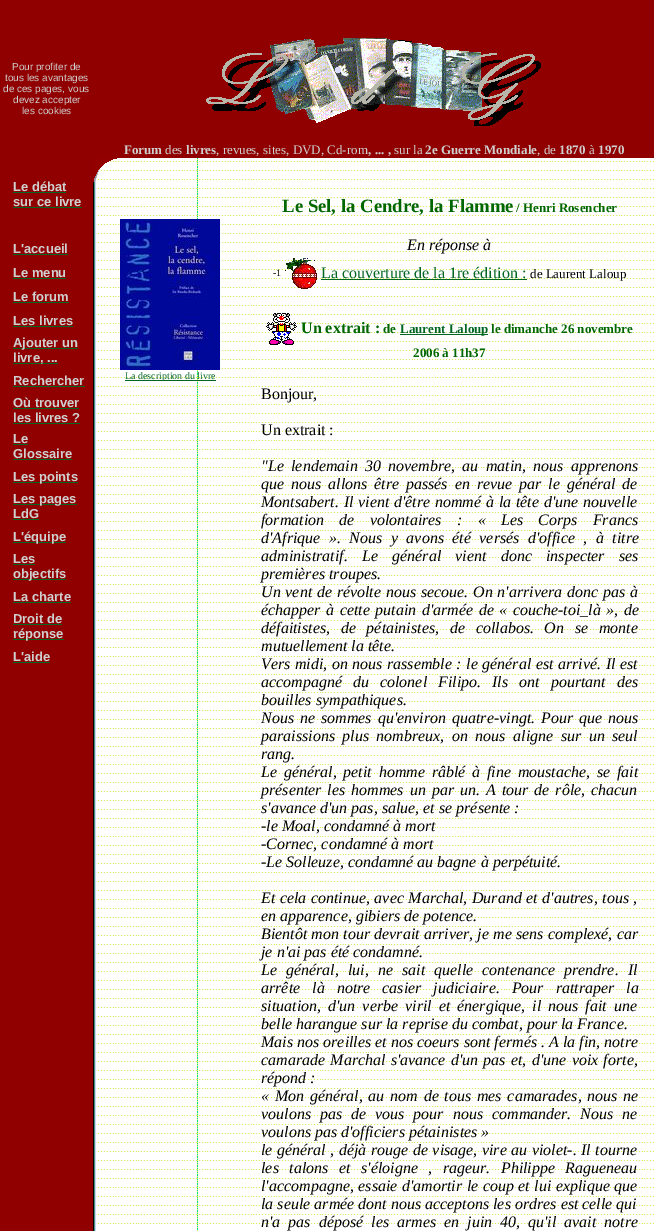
%!PS
<< /PageSize [654 1231] >> setpagedevice
/m/moveto load def
/C { dup -16 bitshift 255 div exch dup -8 bitshift 255 and 255 div exch 255 and 255 div setrgbcolor } def
/F { [ exch dup neg 0 0 3 -1 roll 0 0 ] selectfont } def
/T { moveto show } def
/R { rectfill } def
/I { 5 dict begin { /h /w /y /x /name } { exch def } forall
  gsave x y translate w h scale
  w h 8 [w 0 0 h 0 0] name (r) file false 3 colorimage grestore end } def
0 1231 translate 1 -1 scale
4 setmiterlimit
16#900000 C
0 0 654 1231 R
/LiberationSans-Regular 10 F
16#D0D0D0 C
(Pour profiter de) 12 70 T
(tous les avantages) 5 81 T
(de ces pages, vous) 3 92 T
(devez accepter) 13 103 T
(les cookies) 22 114 T
(1.rgb) 206 38 335 88 I
/LiberationSerif-Bold 13 F
(Forum) 124 154 T
/LiberationSerif-Regular 13 F
(des) 165 154 T
/LiberationSerif-Bold 13 F
(livres) 186 154 T
/LiberationSerif-Regular 13 F
(, revues, sites, DVD, Cd-rom) 216 154 T
/LiberationSerif-Bold 13 F
(, ... ,) 368 154 T
/LiberationSerif-Regular 13 F
(sur la) 394 154 T
/LiberationSerif-Bold 13 F
(2e Guerre Mondiale) 425 154 T
/LiberationSerif-Regular 13 F
(, de) 537 154 T
/LiberationSerif-Bold 13 F
(1870) 559 154 T
/LiberationSerif-Regular 13 F
(à) 589 154 T
/LiberationSerif-Bold 13 F
(1970) 598 154 T
/LiberationSans-Bold 13 F
(Le débat) 13 191 T
16#006622 C
13 192 53 1 R
16#D0D0D0 C
(sur ce livre) 13 206 T
16#006622 C
13 207 69 1 R
16#D0D0D0 C
(L'accueil) 13 253 T
16#006622 C
13 254 55 1 R
16#D0D0D0 C
(Le menu) 13 277 T
16#006622 C
13 278 53 1 R
16#D0D0D0 C
(Le forum) 13 301 T
16#006622 C
13 302 56 1 R
16#D0D0D0 C
(Les livres) 13 325 T
16#006622 C
13 326 60 1 R
13 348 65 1 R
16#D0D0D0 C
(Ajouter un) 13 347 T
16#006622 C
13 363 45 1 R
16#D0D0D0 C
(livre, ...) 13 362 T
(Rechercher) 13 385 T
16#006622 C
13 386 72 1 R
16#D0D0D0 C
(Où trouver) 13 407 T
16#006622 C
13 408 66 1 R
16#D0D0D0 C
(les livres ?) 13 422 T
16#006622 C
13 423 67 1 R
16#D0D0D0 C
(Le) 13 443 T
16#006622 C
13 444 15 1 R
16#D0D0D0 C
(Glossaire) 13 458 T
16#006622 C
13 459 59 1 R
13 482 65 1 R
16#D0D0D0 C
(Les points) 13 481 T
16#006622 C
13 504 64 1 R
16#D0D0D0 C
(Les pages) 13 503 T
(LdG) 13 518 T
16#006622 C
13 519 26 1 R
13 542 53 1 R
16#D0D0D0 C
(L'équipe) 13 541 T
(Les) 13 563 T
16#006622 C
13 564 22 1 R
13 579 53 1 R
16#D0D0D0 C
(objectifs) 13 578 T
(La charte) 13 601 T
16#006622 C
13 602 58 1 R
16#D0D0D0 C
(Droit de) 13 623 T
16#006622 C
13 624 49 1 R
13 639 51 1 R
16#D0D0D0 C
(réponse) 13 638 T
(L'aide) 13 661 T
16#006622 C
13 662 37 1 R
(2.rgb) 93 158 561 1073 I
(3.rgb) 93 158 24 24 I
(4.rgb) 120 219 100 151 I
125 380 91 1 R
/LiberationSerif-Regular 10 F
(La description du livre) 125 379 T
/LiberationSerif-Bold 18.75 F
16#006600 C
(Le Sel, la Cendre, la Flamme) 282 212 T
/LiberationSerif-Bold 13 F
(/ Henri Rosencher) 516 212 T
/LiberationSerif-Italic 16 F
16#000000 C
(En réponse à) 407 250 T
/LiberationSerif-Regular 10 F
(-1) 273 276 T
(5.rgb) 285 258 32 31 I
/LiberationSerif-Regular 16 F
16#006622 C
(La couverture de la 1re édition :) 321 278 T
321 279 206 1 R
/LiberationSerif-Regular 13 F
16#000000 C
(de Laurent Laloup) 530 278 T
(6.rgb) 266 313 31 32 I
/LiberationSerif-Bold 16 F
16#006600 C
(Un extrait :) 301 333 T
/LiberationSerif-Bold 13 F
(de) 383 333 T
16#006622 C
400 334 88 1 R
(Laurent Laloup) 400 333 T
16#006600 C
(le dimanche 26 novembre) 491 333 T
(2006 à 11h37) 413 357 T
/LiberationSerif-Regular 16 F
16#000000 C
(Bonjour,) 261 399 T
(Un extrait :) 261 435 T
/LiberationSerif-Italic 16 F
261 471 m 3.25 0 32 ("Le lendemain 30 novembre, au matin, nous apprenons) widthshow
261 489 m 2.9 0 32 (que nous allons être passés en revue par le général de) widthshow
261 507 m .75 0 32 (Montsabert. Il vient d'être nommé à la tête d'une nouvelle) widthshow
261 525 m 11.25 0 32 (formation de volontaires : « Les Corps Francs) widthshow
261 543 m 4.5 0 32 (d'Afrique ». Nous y avons été versés d'office , à titre) widthshow
261 561 m 10.25 0 32 (administratif. Le général vient donc inspecter ses) widthshow
(premières troupes.) 261 579 T
261 597 m .75 0 32 (Un vent de révolte nous secoue. On n'arrivera donc pas à) widthshow
261 615 m 1.5 0 32 (échapper à cette putain d'armée de « couche-toi_là », de) widthshow
261 633 m 6.75 0 32 (défaitistes, de pétainistes, de collabos. On se monte) widthshow
(mutuellement la tête.) 261 651 T
261 669 m .5 0 32 (Vers midi, on nous rassemble : le général est arrivé. Il est) widthshow
261 687 m 7 0 32 (accompagné du colonel Filipo. Ils ont pourtant des) widthshow
(bouilles sympathiques.) 261 705 T
261 723 m 2 0 32 (Nous ne sommes qu'environ quatre-vingt. Pour que nous) widthshow
261 741 m 3.5 0 32 (paraissions plus nombreux, on nous aligne sur un seul) widthshow
(rang.) 261 759 T
261 777 m 2.75 0 32 (Le général, petit homme râblé à fine moustache, se fait) widthshow
261 795 m 2 0 32 (présenter les hommes un par un. A tour de rôle, chacun) widthshow
(s'avance d'un pas, salue, et se présente :) 261 813 T
(-le Moal, condamné à mort) 261 831 T
(-Cornec, condamné à mort) 261 849 T
(-Le Solleuze, condamné au bagne à perpétuité.) 261 867 T
261 903 m .5 0 32 (Et cela continue, avec Marchal, Durand et d'autres, tous ,) widthshow
(en apparence, gibiers de potence.) 261 921 T
261 939 m .25 0 32 (Bientôt mon tour devrait arriver, je me sens complexé, car) widthshow
(je n'ai pas été condamné.) 261 957 T
261 975 m 5 0 32 (Le général, lui, ne sait quelle contenance prendre. Il) widthshow
261 993 m 8 0 32 (arrête là notre casier judiciaire. Pour rattraper la) widthshow
261 1011 m 3 0 32 (situation, d'un verbe viril et énergique, il nous fait une) widthshow
(belle harangue sur la reprise du combat, pour la France.) 261 1029 T
(Mais nos oreilles et nos coeurs sont fermés . A la fin, notre) 261 1047 T
261 1065 m 1.25 0 32 (camarade Marchal s'avance d'un pas et, d'une voix forte,) widthshow
(répond :) 261 1083 T
261 1101 m 1.75 0 32 (« Mon général, au nom de tous mes camarades, nous ne) widthshow
261 1119 m 5 0 32 (voulons pas de vous pour nous commander. Nous ne) widthshow
(voulons pas d'officiers pétainistes ») 261 1137 T
261 1155 m .5 0 32 (le général , déjà rouge de visage, vire au violet-. Il tourne) widthshow
261 1173 m 6.5 0 32 (les talons et s'éloigne , rageur. Philippe Ragueneau) widthshow
261 1191 m .5 0 32 (l'accompagne, essaie d'amortir le coup et lui explique que) widthshow
(la seule armée dont nous acceptons les ordres est celle qui) 261 1209 T
261 1227 m 4 0 32 (n'a pas déposé les armes en juin 40, qu'il avait notre) widthshow
showpage
